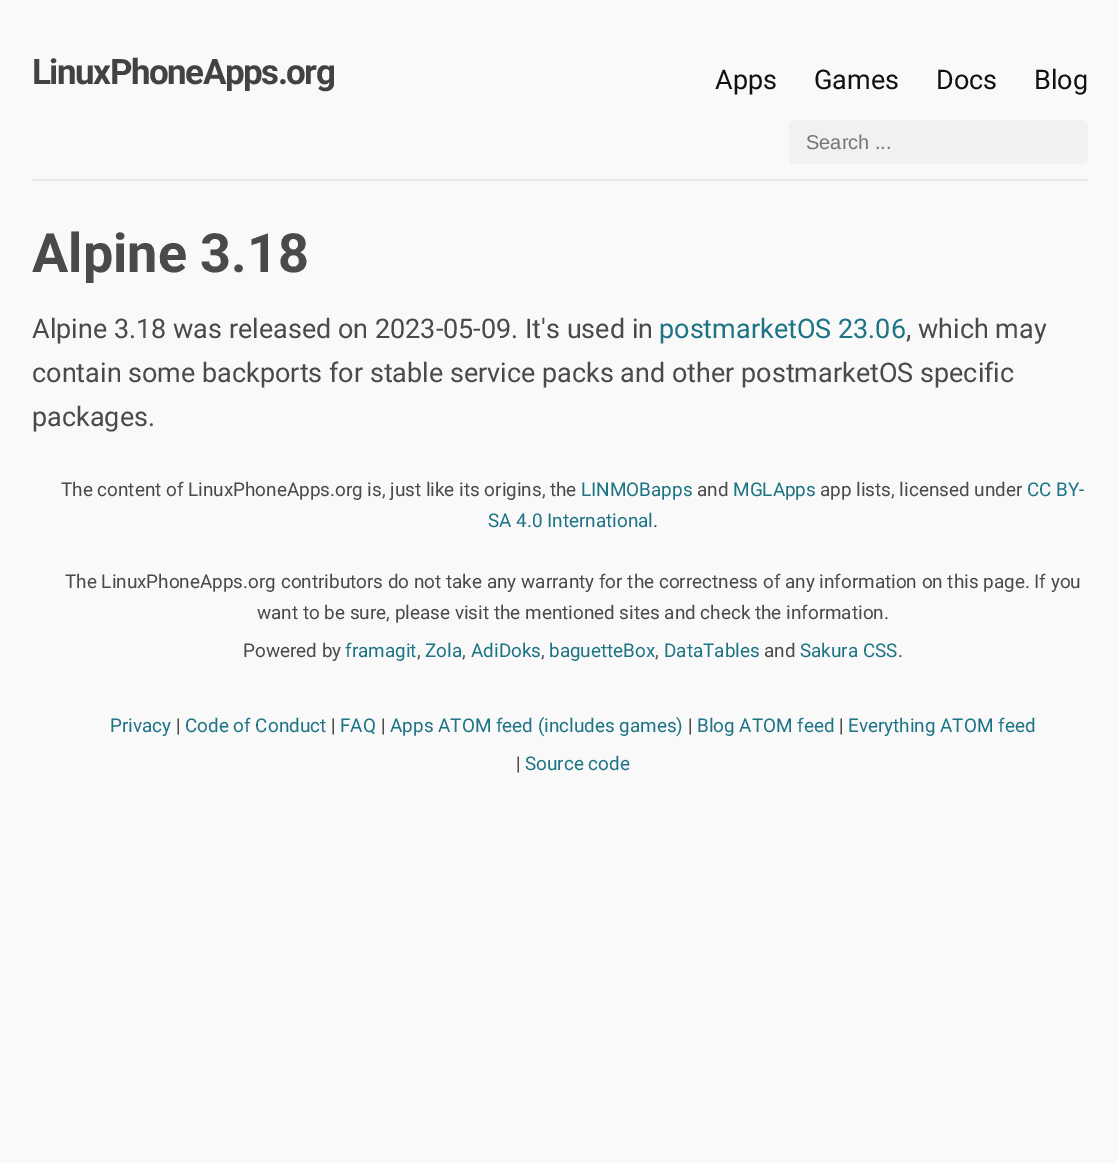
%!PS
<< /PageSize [1118 1163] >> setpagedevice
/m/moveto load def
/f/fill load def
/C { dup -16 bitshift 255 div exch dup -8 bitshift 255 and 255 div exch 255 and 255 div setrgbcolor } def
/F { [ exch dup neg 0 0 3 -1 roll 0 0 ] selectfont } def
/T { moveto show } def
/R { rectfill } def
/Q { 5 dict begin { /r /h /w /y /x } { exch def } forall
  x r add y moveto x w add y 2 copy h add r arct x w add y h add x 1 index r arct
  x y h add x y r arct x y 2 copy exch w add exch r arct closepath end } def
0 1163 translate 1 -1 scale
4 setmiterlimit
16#F9F9F9 C
0 0 1118 1163 R
16#E8E8E8 C
32 179 1056 2 R
/Roboto-Bold 35 F
16#424242 C
32 84 m -1.5 0 (LinuxPhoneApps.org) ashow
/Roboto-Regular 27 F
16#111111 C
(Apps) 715 89 T
(Games) 814 89 T
(Docs) 936 89 T
(Blog) 1034 89 T
16#F1F1F1 C
789 120 299 44 6 Q f
/LiberationSans-Regular 20 F
16#757575 C
(Search ...) 806 149 T
/Roboto-Bold 54 F
16#4A4A4A C
(Alpine 3.18) 32 272 T
/Roboto-Regular 27 F
(Alpine 3.18 was released on 2023-05-09. It's used in) 32 338 T
16#1D7484 C
(postmarketOS 23.06) 659 338 T
16#4A4A4A C
(, which may) 906 338 T
(contain some backports for stable service packs and other postmarketOS specific) 32 382 T
(packages.) 32 426 T
/Roboto-Regular 18.9 F
(The content of LinuxPhoneApps.org is, just like its origins, the) 61 496 T
16#1D7484 C
(LINMOBapps) 581 496 T
16#4A4A4A C
(and) 697 496 T
16#1D7484 C
(MGLApps) 733 496 T
16#4A4A4A C
(app lists, licensed under) 820 496 T
16#1D7484 C
(CC BY-) 1027 496 T
(SA 4.0 International) 488 527 T
16#4A4A4A C
(.) 653 527 T
(The LinuxPhoneApps.org contributors do not take any warranty for the correctness of any information on this page. If you) 65 588 T
(want to be sure, please visit the mentioned sites and check the information.) 257 619 T
(Powered by) 243 657 T
16#1D7484 C
(framagit) 345 657 T
16#4A4A4A C
(,) 417 657 T
16#1D7484 C
(Zola) 425 657 T
16#4A4A4A C
(,) 462 657 T
16#1D7484 C
(AdiDoks) 471 657 T
16#4A4A4A C
(,) 541 657 T
16#1D7484 C
(baguetteBox) 549 657 T
16#4A4A4A C
(,) 655 657 T
16#1D7484 C
(DataTables) 664 657 T
16#4A4A4A C
(and) 764 657 T
16#1D7484 C
(Sakura CSS) 800 657 T
16#4A4A4A C
(.) 898 657 T
16#1D7484 C
(Privacy) 110 732 T
16#4A4A4A C
(|) 176 732 T
16#1D7484 C
(Code of Conduct) 185 732 T
16#4A4A4A C
(|) 331 732 T
16#1D7484 C
(FAQ) 340 732 T
16#4A4A4A C
(|) 381 732 T
16#1D7484 C
(Apps ATOM feed \(includes games\)) 390 732 T
16#4A4A4A C
(|) 688 732 T
16#1D7484 C
(Blog ATOM feed) 697 732 T
16#4A4A4A C
(|) 839 732 T
16#1D7484 C
(Everything ATOM feed) 848 732 T
16#4A4A4A C
(|) 516 770 T
16#1D7484 C
(Source code) 525 770 T
showpage
